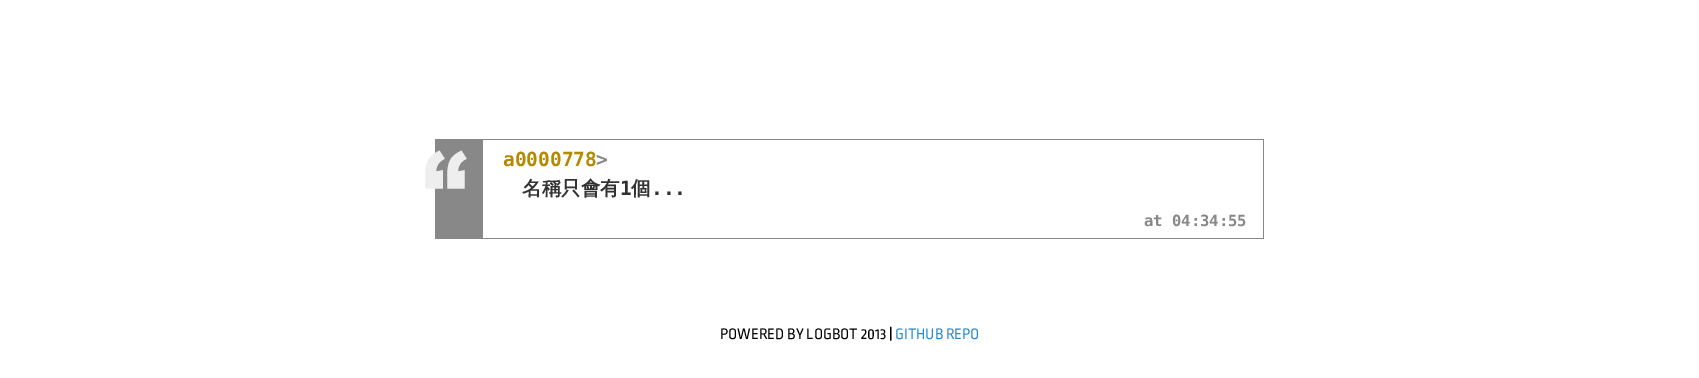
%!PS
<< /PageSize [1699 378] >> setpagedevice
/C { dup -16 bitshift 255 div exch dup -8 bitshift 255 and 255 div exch 255 and 255 div setrgbcolor } def
/F { [ exch dup neg 0 0 3 -1 roll 0 0 ] selectfont } def
/T { moveto show } def
/R { rectfill } def
0 378 translate 1 -1 scale
4 setmiterlimit
16#FFFFFF C
0 0 1699 378 R
16#888888 C
483 139 781 1 R
1263 139 1 100 R
483 238 781 1 R
435 139 48 100 R
/WenQuanYiZenHei-Bold 144 F
16#EEEEEE C
(“) 419 260 T
/DejaVuSansMono-Bold 19.5 F
16#B58900 C
(a0000778) 503 166 T
16#888888 C
(>) 596 166 T
/DejaVuSansMono-Bold 15.5 F
(at 04:34:55) 1144 226 T
/WenQuanYiZenHei-Bold 19.5 F
16#333333 C
(名稱只會有) 522 195 T
/DejaVuSansMono-Bold 19.5 F
(1) 620 195 T
/WenQuanYiZenHei-Bold 19.5 F
(個) 631 195 T
/DejaVuSansMono-Bold 19.5 F
(...) 651 195 T
/RopaSans-Regular 16 F
16#000000 C
(POWERED BY LOGBOT 2013 |) 720 339 T
16#268BD2 C
(GITHUB REPO) 895 339 T
showpage
